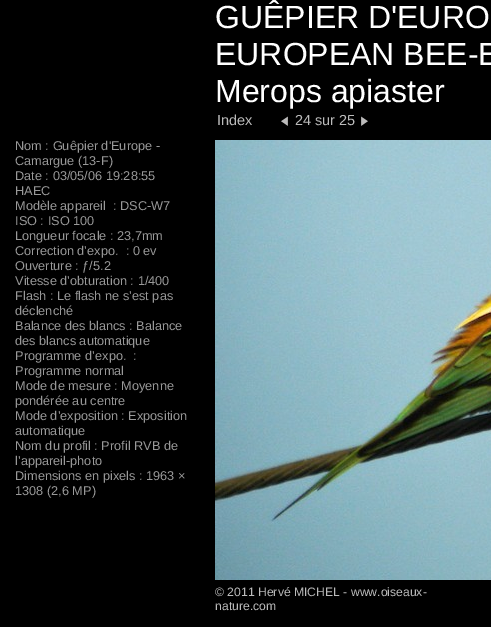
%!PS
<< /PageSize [491 627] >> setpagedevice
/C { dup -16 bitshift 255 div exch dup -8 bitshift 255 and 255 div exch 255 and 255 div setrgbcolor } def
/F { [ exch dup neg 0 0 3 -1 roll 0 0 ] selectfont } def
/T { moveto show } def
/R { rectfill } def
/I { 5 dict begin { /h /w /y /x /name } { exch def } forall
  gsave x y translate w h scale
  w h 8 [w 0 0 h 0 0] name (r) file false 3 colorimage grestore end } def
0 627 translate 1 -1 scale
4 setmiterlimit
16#000000 C
0 0 491 627 R
/LiberationSans-Regular 32 F
16#FFFFFF C
(GUÊPIER D'EURO) 215 28 T
(EUROPEAN BEE-E) 215 65 T
(Merops apiaster) 215 102 T
/LiberationSans-Regular 14.5 F
16#BBBBBB C
(Index) 217 125 T
(1.rgb) 281 116 7 10 I
(24 sur 25) 295 125 T
(2.rgb) 361 116 7 10 I
/LiberationSans-Regular 12.75 F
16#999999 C
(Nom : Guêpier d'Europe -) 15 150 T
(Camargue \(13-F\)) 15 165 T
(Date : 03/05/06 19:28:55) 15 180 T
(HAEC) 15 195 T
(Modèle appareil  : DSC-W7) 15 210 T
(ISO : ISO 100) 15 225 T
(Longueur focale : 23,7mm) 15 240 T
(Correction d’expo.  : 0 ev) 15 255 T
(Ouverture : ƒ/5.2) 15 270 T
(Vitesse d’obturation : 1/400) 15 285 T
(Flash : Le flash ne s’est pas) 15 300 T
(déclenché) 15 315 T
(Balance des blancs : Balance) 15 330 T
(des blancs automatique) 15 345 T
(Programme d’expo.  :) 15 360 T
(Programme normal) 15 375 T
(Mode de mesure : Moyenne) 15 390 T
(pondérée au centre) 15 405 T
(Mode d’exposition : Exposition) 15 420 T
(automatique) 15 435 T
(Nom du profil : Profil RVB de) 15 450 T
(l’appareil-photo) 15 465 T
(Dimensions en pixels : 1963 ×) 15 480 T
(1308 \(2,6 MP\)) 15 495 T
(3.rgb) 215 140 276 440 I
/LiberationSans-Regular 12.2 F
16#BBBBBB C
(© 2011 Hervé MICHEL - www.oiseaux-) 215 596 T
(nature.com) 215 610 T
showpage
